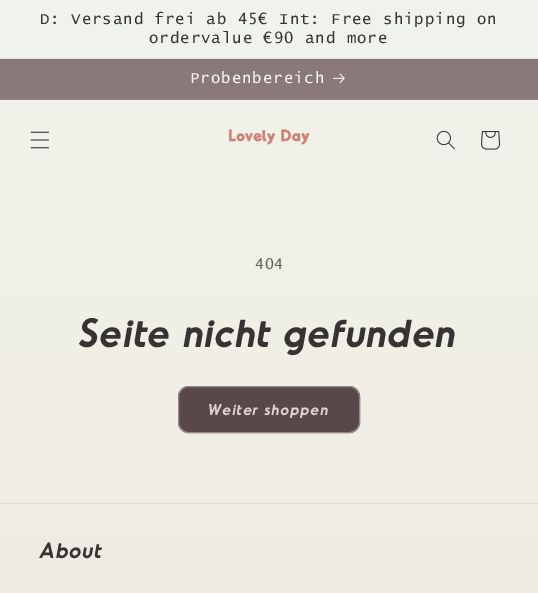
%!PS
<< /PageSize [538 593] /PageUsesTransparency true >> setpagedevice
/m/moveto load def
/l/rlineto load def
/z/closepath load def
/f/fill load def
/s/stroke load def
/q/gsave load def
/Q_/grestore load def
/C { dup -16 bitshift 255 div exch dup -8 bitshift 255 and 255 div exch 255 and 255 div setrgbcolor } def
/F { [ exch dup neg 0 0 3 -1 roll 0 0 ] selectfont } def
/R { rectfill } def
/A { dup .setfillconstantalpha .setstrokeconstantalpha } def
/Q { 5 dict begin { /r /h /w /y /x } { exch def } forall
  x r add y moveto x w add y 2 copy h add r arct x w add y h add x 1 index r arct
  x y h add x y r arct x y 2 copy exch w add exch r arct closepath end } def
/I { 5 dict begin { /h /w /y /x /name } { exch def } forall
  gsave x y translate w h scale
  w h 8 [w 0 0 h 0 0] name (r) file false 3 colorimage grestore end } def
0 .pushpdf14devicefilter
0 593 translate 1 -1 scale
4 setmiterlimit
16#FFFFFF C
0 0 538 593 R
q 0 0 m 538 0 l 0 593 l -538 0 l z clip newpath
<< /ShadingType 2 /ColorSpace /DeviceRGB /Coords [269 0 269 593] /Extend [true true] /Function << /FunctionType 2 /Domain [0 1] /C0 [.941 .957 .925] /C1 [.945 .922 .886] /N 1 >> >> shfill Q_
16#E1E4DC C
0 58 538 1 R
/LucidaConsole-Regular 15.6 F
16#383333 C
40 24 m 1 0 (D: Versand frei ab 45€ Int: Free shipping on) ashow
149 43 m 1 0 (ordervalue €90 and more) ashow
16#897979 C
0 59 538 40 R
16#928383 C
0 99 538 1 R
16#F9F7F8 C
190 83 m 1 0 (Probenbereich) ashow
(1.rgb) 333 73 12 11 I
(2.rgb) 30 131 20 18 I
(3.rgb) 228 129 82 16 I
(4.rgb) 436 130 19 20 I
(5.rgb) 481 131 20 19 I
/LucidaConsole-Regular 15 F
16#666260 C
255 269 m .5 0 (404) ashow
/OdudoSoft-SemiBold 39 F
16#383333 C
80 347 m .75 0 (Seite nicht gefunden) ashow
16#59484A C
178 386 182 47 11 Q f
178.5 386.5 181 46 10.5 Q s
0.45 A
16#E1D2D2 C
178.5 386.5 181 46 10.5 Q s
/OdudoSoft-SemiBold 15 F
1 A
208 415 m 1 0 (Weiter shoppen) ashow
16#E2DDD6 C
0 503 538 1 R
/OdudoSoft-SemiBold 21 F
16#383333 C
40 558 m .75 0 (About) ashow
.poppdf14devicefilter showpage
